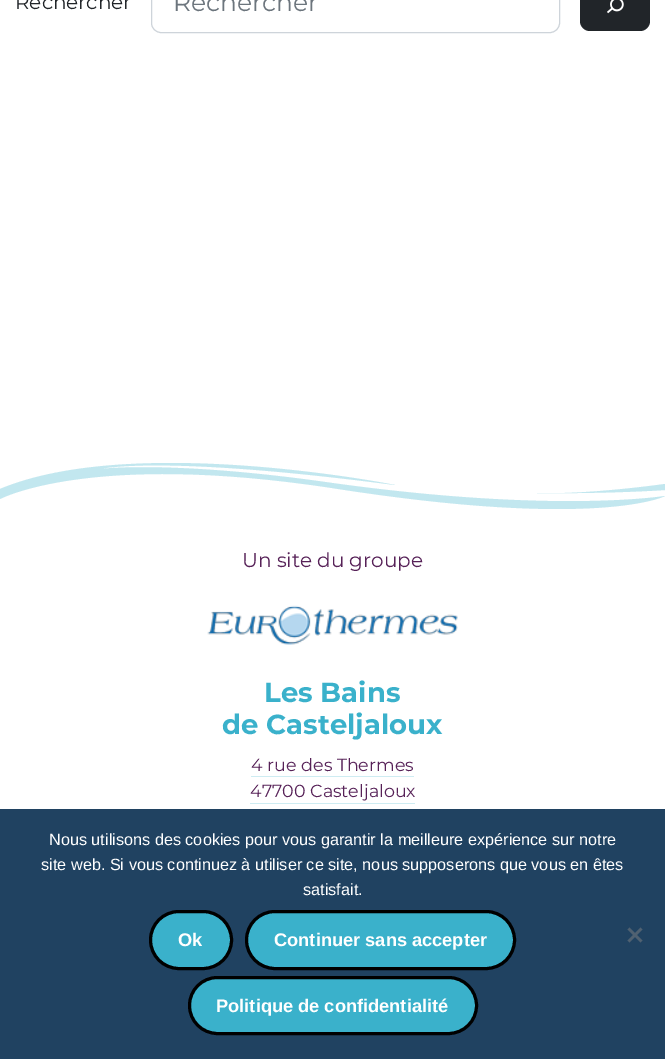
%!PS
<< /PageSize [665 1059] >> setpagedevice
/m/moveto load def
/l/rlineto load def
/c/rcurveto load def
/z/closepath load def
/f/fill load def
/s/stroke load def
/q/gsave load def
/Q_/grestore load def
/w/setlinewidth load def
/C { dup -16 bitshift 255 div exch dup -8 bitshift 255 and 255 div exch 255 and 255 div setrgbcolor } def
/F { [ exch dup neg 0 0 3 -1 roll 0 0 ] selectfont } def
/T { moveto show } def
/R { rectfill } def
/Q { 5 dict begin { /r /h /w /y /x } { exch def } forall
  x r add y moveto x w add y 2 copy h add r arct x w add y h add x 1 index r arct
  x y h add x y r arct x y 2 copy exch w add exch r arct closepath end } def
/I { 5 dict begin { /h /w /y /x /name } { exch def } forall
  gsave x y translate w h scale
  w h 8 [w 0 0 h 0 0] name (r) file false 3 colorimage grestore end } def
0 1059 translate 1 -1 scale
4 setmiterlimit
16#FFFFFF C
0 0 665 1059 R
/Montserrat-Thin 20 F
16#212529 C
(Rechercher) 15 9 T
16#CED4DA C
151.5 -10.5 408 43 9.5 Q s
/Montserrat-Thin 25 F
16#6C757D C
(Rechercher) 173 11 T
16#212529 C
580 -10 70 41 10 Q f
(1.rgb) 607 0 17 14 I
16#C2E7EF C
0 489 m 134 -56 395 -4 395 -4 c -237 -31 -295 -16 -295 -16 c 0 0 72 -9 232 14 c 223 31 333 13 333 13 c 0 0 -66 34 -333 -8 c -243 -37 -332 11 -332 11 c z 665 490 m 0 -6 l 0 0 -77 11 -128 9 c 0 0 65 1 128 -3 c z f
/Montserrat-Thin 20 F
16#572258 C
(Un site du groupe) 242 567 T
(2.rgb) 207 605 251 40 I
/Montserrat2-Thin 27.5 F
16#3AB1CB C
(Les Bains) 264 702 T
(de Casteljaloux) 222 734 T
/Montserrat-Thin 17.5 F
16#572258 C
(4 rue des Thermes) 251 771 T
16#CEECF2 C
251 776 163 1 R
16#572258 C
(47700 Casteljaloux) 250 797 T
16#CEECF2 C
250 803 165 1 R
16#204261 C
0 809 665 250 R
/LiberationSans-Regular 16.25 F
16#FFFFFF C
(Nous utilisons des cookies pour vous garantir la meilleure expérience sur notre) 49 845 T
(site web. Si vous continuez à utiliser ce site, nous supposerons que vous en êtes) 41 870 T
(satisfait.) 303 895 T
16#3AB1CB C
150.5 911.5 81 57 28.5 Q q f Q_
16#000000 C
3 w
s
/LiberationSans-Bold 18.25 F
16#FFFFFF C
(Ok) 178 946 T
16#3AB1CB C
246.5 911.5 268 57 28.5 Q q f Q_
16#000000 C
s
16#FFFFFF C
(Continuer sans accepter) 274 946 T
16#3AB1CB C
189.5 977.5 287 56 28 Q q f Q_
16#000000 C
s
16#FFFFFF C
(Politique de confidentialité) 216 1012 T
16#506171 C
640.5 927.5 m 2 2 l -13 13 l -2 -2 l z f
627.5 929.5 m 2 -2 l 13 13 l -2 2 l z f
showpage
